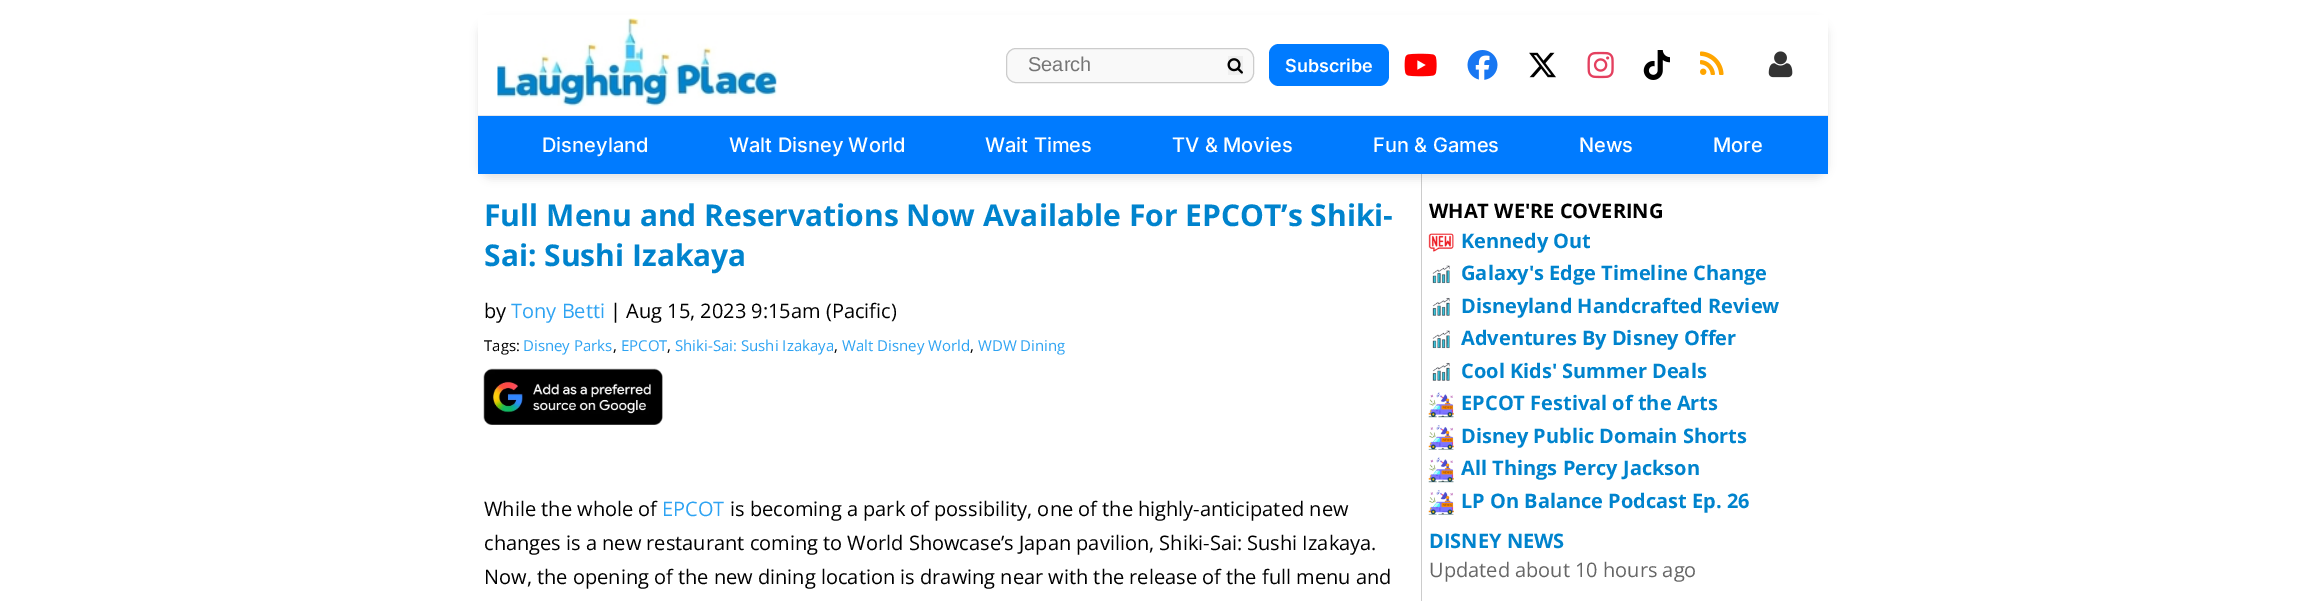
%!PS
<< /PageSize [2305 601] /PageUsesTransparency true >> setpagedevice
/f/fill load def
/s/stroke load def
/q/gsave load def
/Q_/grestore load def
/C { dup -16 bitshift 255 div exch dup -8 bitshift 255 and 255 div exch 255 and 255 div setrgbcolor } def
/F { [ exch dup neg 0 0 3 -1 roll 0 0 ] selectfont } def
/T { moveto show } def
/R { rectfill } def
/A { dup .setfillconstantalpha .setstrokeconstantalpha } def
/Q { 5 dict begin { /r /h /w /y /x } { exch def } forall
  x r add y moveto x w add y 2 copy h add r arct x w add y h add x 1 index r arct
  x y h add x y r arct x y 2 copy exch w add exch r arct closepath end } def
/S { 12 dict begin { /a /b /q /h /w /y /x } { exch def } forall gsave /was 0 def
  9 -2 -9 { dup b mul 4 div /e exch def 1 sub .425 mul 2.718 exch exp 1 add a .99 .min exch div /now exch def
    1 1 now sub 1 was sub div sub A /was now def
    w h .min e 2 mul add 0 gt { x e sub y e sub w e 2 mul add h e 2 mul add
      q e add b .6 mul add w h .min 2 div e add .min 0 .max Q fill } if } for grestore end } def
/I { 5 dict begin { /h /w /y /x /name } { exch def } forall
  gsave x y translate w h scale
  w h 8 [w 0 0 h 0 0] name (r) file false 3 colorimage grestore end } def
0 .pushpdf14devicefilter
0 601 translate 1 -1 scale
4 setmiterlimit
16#FFFFFF C
0 0 2305 601 R
16#CCCCCC C
1421 174 1 427 R
16#000000 C
478 20 1350 159 15 4 .1 S
16#FFFFFF C
478 15 1350 100 R
16#E5E7EB C
478 115 1350 1 R
(1.rgb) 497 18 280 89 I
16#F9F9F9 C
1006.5 48.5 247 34 9.5 Q q f Q_
16#CCCCCC C
s
/LiberationSans-Regular 20 F
16#757575 C
(Search) 1028 71 T
16#EFEFEF C
1228 56 15 19 R
(2.rgb) 1227 58 16 16 I
16#007BFF C
1269 44 120 42 10 Q f
/Inter-SemiBold 18 F
16#FFFFFF C
(Subscribe) 1285 72 T
(3.rgb) 1404 53 33 24 I
(4.rgb) 1467 50 31 30 I
(5.rgb) 1529 52 27 26 I
(6.rgb) 1587 51 27 28 I
(7.rgb) 1643 50 27 30 I
(8.rgb) 1700 51 24 24 I
(9.rgb) 1768 51 25 27 I
16#007BFF C
478 116 1350 58 R
/Inter-Medium 20 F
16#FFFFFF C
(Disneyland) 542 152 T
(Walt Disney World) 729 152 T
(Wait Times) 985 152 T
(TV & Movies) 1172 152 T
(Fun & Games) 1373 152 T
(News) 1579 152 T
(More) 1713 152 T
/OpenSans-Bold 30 F
16#0083CD C
(Full Menu and Reservations Now Available For EPCOT’s Shiki-) 484 226 T
(Sai: Sushi Izakaya) 484 266 T
/OpenSans-Regular 20 F
16#000000 C
(by) 484 318 T
16#2EA3F2 C
(Tony Betti) 511 318 T
16#000000 C
(| Aug 15, 2023 9:15am \(Pacific\)) 610 318 T
/OpenSans-Regular 15 F
(Tags:) 484 351 T
16#2EA3F2 C
(Disney Parks) 523 351 T
16#000000 C
(,) 613 351 T
16#2EA3F2 C
(EPCOT) 621 351 T
16#000000 C
(,) 667 351 T
16#2EA3F2 C
(Shiki-Sai: Sushi Izakaya) 675 351 T
16#000000 C
(,) 834 351 T
16#2EA3F2 C
(Walt Disney World) 842 351 T
16#000000 C
(,) 970 351 T
16#2EA3F2 C
(WDW Dining) 978 351 T
(10.rgb) 483 368 180 57 I
/OpenSans-Regular 20 F
16#000000 C
(While the whole of) 484 516 T
16#2EA3F2 C
(EPCOT) 662 516 T
16#000000 C
(is becoming a park of possibility, one of the highly-anticipated new) 730 516 T
(changes is a new restaurant coming to World Showcase’s Japan pavilion, Shiki-Sai: Sushi Izakaya.) 484 550 T
(Now, the opening of the new dining location is drawing near with the release of the full menu and) 484 584 T
/OpenSans-Bold 20 F
(WHAT WE'RE COVERING) 1429 218 T
(11.rgb) 1428 233 26 19 I
16#0083CD C
(Kennedy Out) 1461 248 T
(12.rgb) 1432 265 18 19 I
(Galaxy's Edge Timeline Change) 1461 280 T
(13.rgb) 1432 297 18 19 I
(Disneyland Handcrafted Review) 1461 313 T
(12.rgb) 1432 330 18 19 I
(Adventures By Disney Offer) 1461 345 T
(13.rgb) 1432 362 18 19 I
(Cool Kids' Summer Deals) 1461 378 T
(14.rgb) 1428 392 26 26 I
(EPCOT Festival of the Arts) 1461 410 T
(15.rgb) 1428 425 26 25 I
(Disney Public Domain Shorts) 1461 443 T
(14.rgb) 1428 457 26 26 I
(All Things Percy Jackson) 1461 475 T
(15.rgb) 1428 490 26 25 I
(LP On Balance Podcast Ep. 26) 1461 508 T
(DISNEY NEWS) 1429 548 T
/OpenSans-Regular 20 F
16#666666 C
(Updated about 10 hours ago) 1429 577 T
.poppdf14devicefilter showpage
